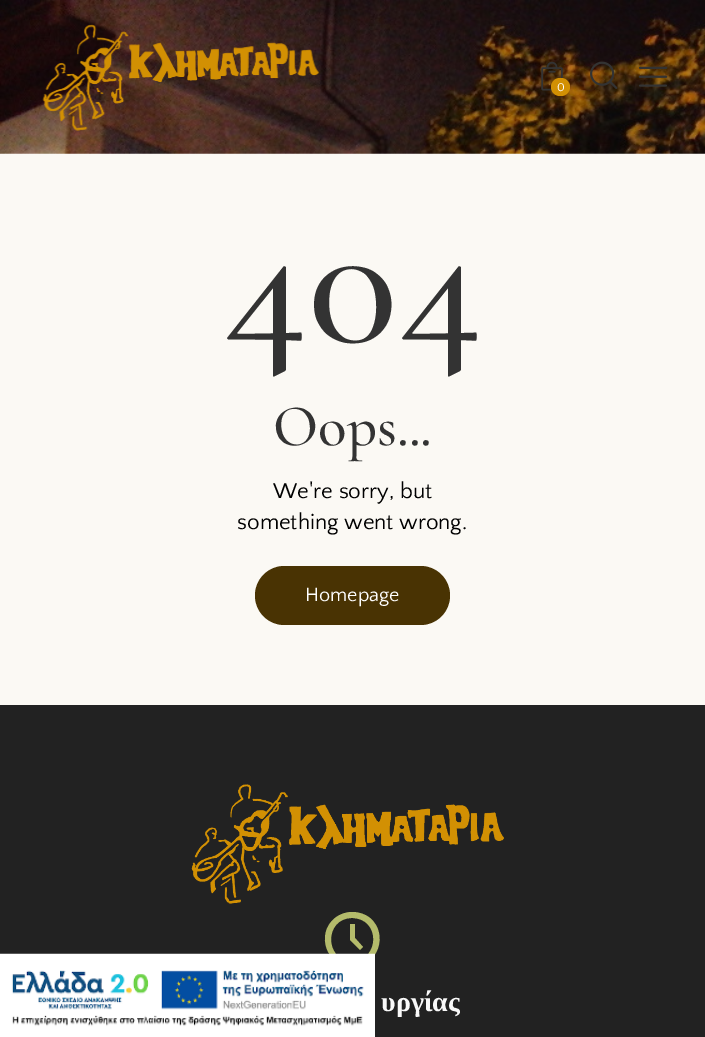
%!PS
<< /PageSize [705 1037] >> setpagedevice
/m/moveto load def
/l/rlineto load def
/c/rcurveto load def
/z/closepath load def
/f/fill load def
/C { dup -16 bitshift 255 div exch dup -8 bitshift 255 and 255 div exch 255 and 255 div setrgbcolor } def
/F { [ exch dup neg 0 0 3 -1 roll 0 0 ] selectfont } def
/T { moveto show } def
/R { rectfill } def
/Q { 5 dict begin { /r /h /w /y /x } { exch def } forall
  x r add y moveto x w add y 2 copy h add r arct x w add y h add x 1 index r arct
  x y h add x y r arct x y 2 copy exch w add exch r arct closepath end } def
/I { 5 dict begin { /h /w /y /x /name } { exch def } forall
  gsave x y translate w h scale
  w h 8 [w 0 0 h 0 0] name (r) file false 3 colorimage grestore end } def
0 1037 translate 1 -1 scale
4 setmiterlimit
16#FFFFFF C
0 0 705 1037 R
16#222222 C
0 705 705 332 R
16#B4BB6B C
352 912 m 7 0 13 2 18 6 c 19 16 8 49 -18 49 c -25 0 -37 -33 -17 -49 c 5 -4 11 -6 17 -6 c z 352 961 m 28 0 29 -43 0 -43 c -28 0 -28 43 0 43 c z 355 924 m 0 14 l 8 9 l -3 3 l -10 -10 l 0 -16 l z f
(1.rgb) 0 953 375 84 I
(2.rgb) 0 0 705 154 I
(3.rgb) 42 24 278 107 I
(4.rgb) 541 61 22 30 I
16#D29003 C
551 78 19 18 9 Q f
/QuattrocentoSans-Regular 12 F
16#FFFFFF C
(0) 557 91 T
(5.rgb) 590 61 28 28 I
(6.rgb) 638 66 30 21 I
16#FBF9F4 C
0 154 705 551 R
/CormorantGaramond-Medium 188 F
16#333333 C
(404) 223 341 T
/CormorantGaramond-Medium 59 F
(Oops...) 273 445 T
/QuattrocentoSans-Regular 22.5 F
16#000000 C
(We're sorry, but) 273 498 T
(something went wrong.) 237 529 T
16#493303 C
255 566 195 59 29.5 Q f
/QuattrocentoSans-Regular 20 F
16#FFFFFF C
(Homepage) 305 601 T
(7.rgb) 191 784 313 120 I
/LiberationSerif-Bold 28 F
16#F9F9F9 C
(υργίας) 381 1011 T
showpage
